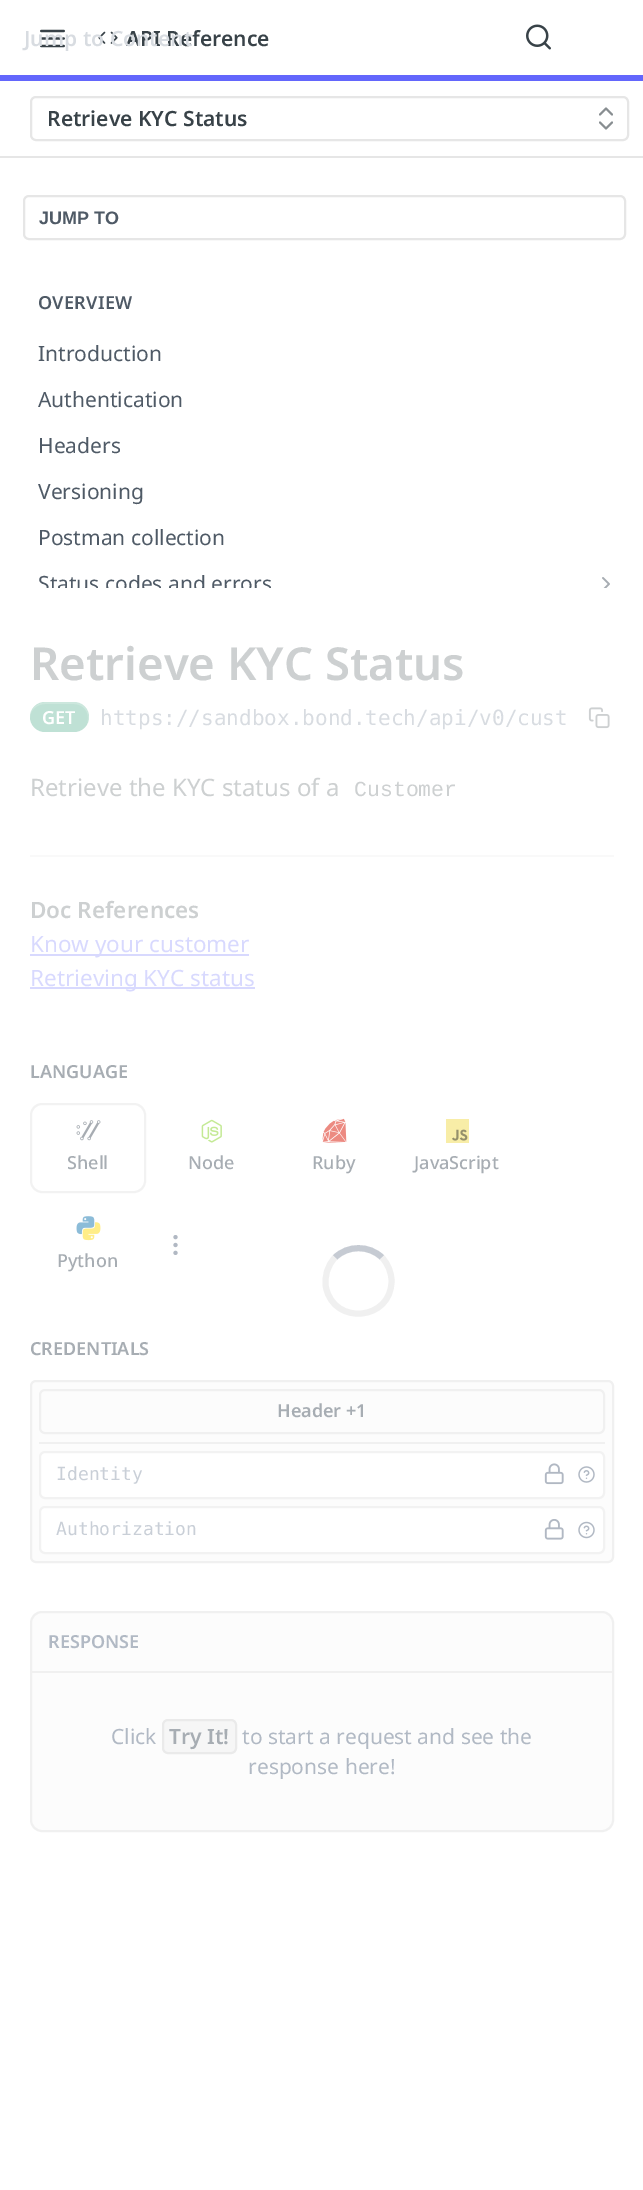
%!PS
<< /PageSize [643 2190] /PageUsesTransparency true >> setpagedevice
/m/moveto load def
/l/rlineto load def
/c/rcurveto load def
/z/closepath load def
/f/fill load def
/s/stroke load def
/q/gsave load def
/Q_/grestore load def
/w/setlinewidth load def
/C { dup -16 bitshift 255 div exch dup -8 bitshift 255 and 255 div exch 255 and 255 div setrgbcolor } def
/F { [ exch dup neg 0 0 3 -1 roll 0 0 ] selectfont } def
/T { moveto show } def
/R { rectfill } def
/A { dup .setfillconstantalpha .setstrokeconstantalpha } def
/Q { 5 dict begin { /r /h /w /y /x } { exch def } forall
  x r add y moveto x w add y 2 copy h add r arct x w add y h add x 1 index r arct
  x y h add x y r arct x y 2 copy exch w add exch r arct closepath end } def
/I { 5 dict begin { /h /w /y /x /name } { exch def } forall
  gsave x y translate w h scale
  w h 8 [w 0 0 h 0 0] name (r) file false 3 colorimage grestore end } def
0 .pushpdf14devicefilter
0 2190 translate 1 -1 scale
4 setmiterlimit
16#FFFFFF C
0 0 643 2190 R
16#E6E6E6 C
0 156 m 0 2 l 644 0 l 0 -156 l 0 154 l z f
16#6366FC C
0 75 643 6 R
(1.rgb) 40 29 25 19 I
(2.rgb) 98 31 20 13 I
/NotoSans-SemiBold 21 F
16#384248 C
(API Reference) 126 46 T
16#D8DCE1 C
(Jump to Content) 24 46 T
(3.rgb) 526 24 25 26 I
16#E6E6E6 C
2 w
31 97 597 43 5 Q s
16#384248 C
(Retrieve KYC Status) 47 126 T
16#888E91 C
1 setlinecap
1 setlinejoin
600 122.5 m 6 6 l 6 -6 l 612 114.5 m -6 -6 l -6 6 l s
16#E6E6E6 C
0 setlinecap
0 setlinejoin
24 196 601 43 5 Q s
/LiberationSans-Bold 18 F
16#4F5A66 C
(JUMP TO) 39 224 T
/NotoSans-SemiBold 18 F
38 309 m .25 0 (OVERVIEW) ashow
/NotoSans-Regular 21 F
(Introduction) 38 361 T
(Authentication) 38 407 T
(Headers) 38 453 T
(Versioning) 38 499 T
(Postman collection) 38 545 T
q
0 156 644 432 rectclip
(Status codes and errors) 38 591 T
Q_
(4.rgb) 602 577 8 11 I
16#F9F9F9 C
30 855 584 2 R
/NotoSans-SemiBold 45.5 F
16#CDD0D1 C
(Retrieve KYC Status) 30 680 T
16#BFE1D5 C
30 702 59 30 15 Q f
0.2 A
16#FFFFFF C
45 704 m 29 0 l 8 0 14 6 14 14 c 0 3 0 5 -1 7 c 5 -8 0 -21 -10 -23 c -17 0 l -10 0 -21 -2 -27 7 c -2 2 -3 5 -3 9 c 0 -8 7 -14 15 -14 c z f
/NotoSans-SemiBold 18 F
1 A
(GET) 42 724 T
/DejaVuSansMono-Regular 21 F
16#D8DCE1 C
(https://sandbox.bond.tech/api/v0/cust) 100 725 T
(5.rgb) 588 707 22 22 I
/NotoSans-Regular 24 F
16#CDD0D1 C
(Retrieve the KYC status of a) 30 796 T
/LiberationMono-Regular 21.5 F
(Customer) 354 796 T
/NotoSans-SemiBold 22.5 F
(Doc References) 30 918 T
16#D8D9FE C
30 954 219 2 R
/NotoSans-Regular 22.5 F
(Know your customer) 30 952 T
30 987 225 2 R
(Retrieving KYC status) 30 986 T
16#C6CBD3 C
6 w
335 1257.5 m 13 -12.5 34 -12.5 47 0 c s
16#F0F0F0 C
382 1257.5 m 6 6.5 9.5 15 9.5 23.5 c 0 39.5 -57.5 45 -65.5 6.5 c -2 -11 1.5 -22 9 -30 c s
/NotoSans-SemiBold 18 F
16#A7ADB3 C
(LANGUAGE) 30 1078 T
16#F2F2F2 C
2 w
31 1104 114 88 11 Q s
(6.rgb) 76 1120 25 21 I
/NotoSans-Medium 18 F
16#A7ADB3 C
(Shell) 67 1169 T
(7.rgb) 201 1119 21 24 I
(Node) 188 1169 T
(8.rgb) 322 1118 25 25 I
(Ruby) 312 1169 T
16#F8EDA7 C
446 1119 23 24 R
(9.rgb) 452 1129 16 12 I
16#A7ADB3 C
(JavaScript) 414 1169 T
(10.rgb) 173 1235 5 20 I
(11.rgb) 76 1216 19 19 I
(12.rgb) 82 1222 19 19 I
(Python) 57 1267 T
/NotoSans-SemiBold 18 F
(CREDENTIALS) 30 1355 T
16#FCFCFC C
31 1381 582 181 5 Q q f Q_
16#F0F0F0 C
s
39 1442 566 2 R
40 1390 564 43 5 Q s
16#A7ADB3 C
(Header +1) 277 1417 T
16#FFFFFF C
40 1452 564 46 5 Q q f Q_
16#F2F2F2 C
s
/DejaVuSansMono-Regular 18 F
16#C9CFD7 C
(Identity) 56 1480 T
(13.rgb) 544 1463 20 22 I
(14.rgb) 578 1466 17 17 I
16#FFFFFF C
40 1507 564 46 5 Q q f Q_
16#F2F2F2 C
s
16#C9CFD7 C
(Authorization) 56 1535 T
(15.rgb) 544 1519 20 21 I
(16.rgb) 578 1521 17 18 I
16#FCFCFC C
31 1612 582 219 11 Q q f Q_
16#F0F0F0 C
s
32 1671 580 2 R
/NotoSans-SemiBold 18 F
16#B1B9C4 C
(RESPONSE) 48 1648 T
/NotoSans-Regular 21 F
(Click) 111 1744 T
16#F6F6F6 C
163 1720 73 33 5 Q q f Q_
16#EAEAEA C
s
/NotoSans-SemiBold 21 F
16#A7ADB3 C
(Try It!) 169 1744 T
/NotoSans-Regular 21 F
16#B1B9C4 C
(to start a request and see the) 242 1744 T
(response here!) 248 1774 T
.poppdf14devicefilter showpage
